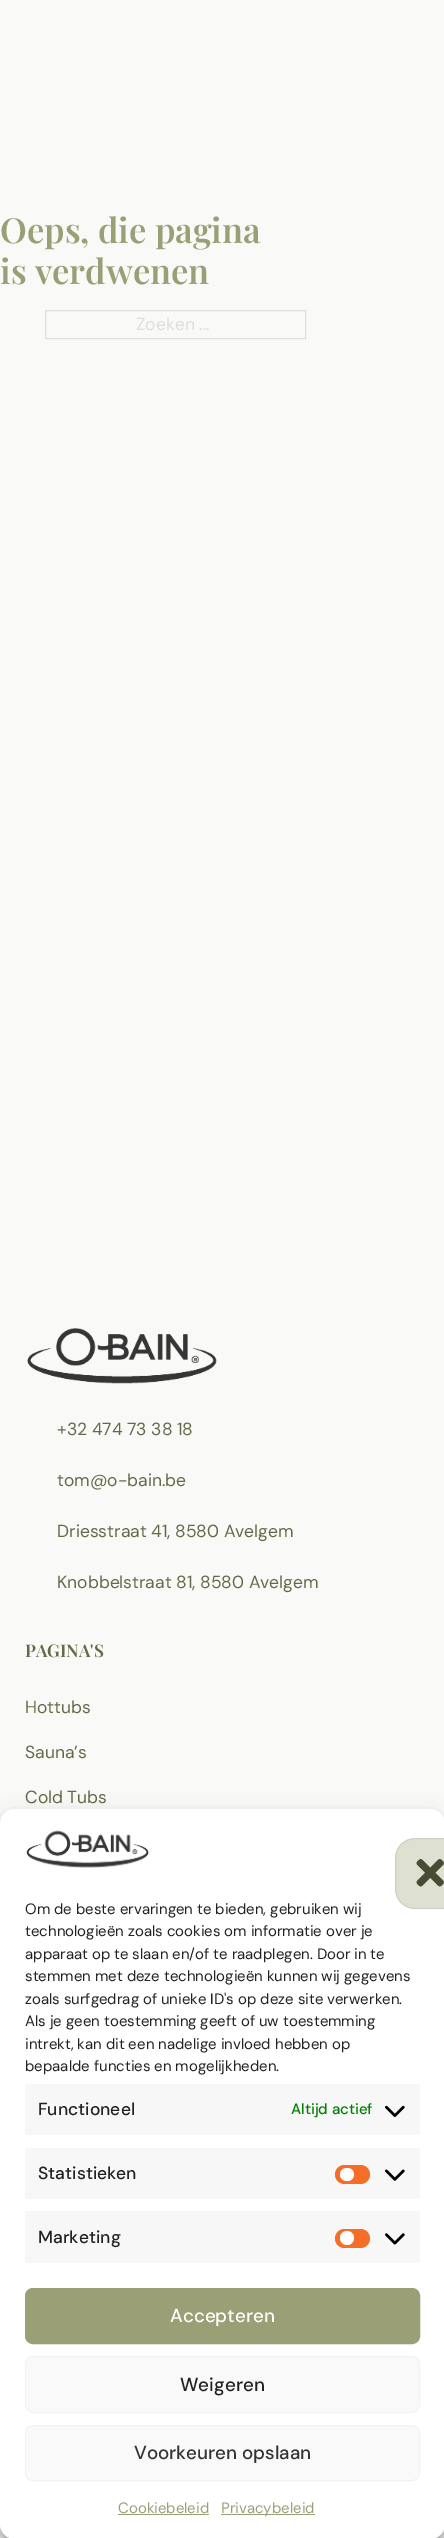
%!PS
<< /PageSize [444 2538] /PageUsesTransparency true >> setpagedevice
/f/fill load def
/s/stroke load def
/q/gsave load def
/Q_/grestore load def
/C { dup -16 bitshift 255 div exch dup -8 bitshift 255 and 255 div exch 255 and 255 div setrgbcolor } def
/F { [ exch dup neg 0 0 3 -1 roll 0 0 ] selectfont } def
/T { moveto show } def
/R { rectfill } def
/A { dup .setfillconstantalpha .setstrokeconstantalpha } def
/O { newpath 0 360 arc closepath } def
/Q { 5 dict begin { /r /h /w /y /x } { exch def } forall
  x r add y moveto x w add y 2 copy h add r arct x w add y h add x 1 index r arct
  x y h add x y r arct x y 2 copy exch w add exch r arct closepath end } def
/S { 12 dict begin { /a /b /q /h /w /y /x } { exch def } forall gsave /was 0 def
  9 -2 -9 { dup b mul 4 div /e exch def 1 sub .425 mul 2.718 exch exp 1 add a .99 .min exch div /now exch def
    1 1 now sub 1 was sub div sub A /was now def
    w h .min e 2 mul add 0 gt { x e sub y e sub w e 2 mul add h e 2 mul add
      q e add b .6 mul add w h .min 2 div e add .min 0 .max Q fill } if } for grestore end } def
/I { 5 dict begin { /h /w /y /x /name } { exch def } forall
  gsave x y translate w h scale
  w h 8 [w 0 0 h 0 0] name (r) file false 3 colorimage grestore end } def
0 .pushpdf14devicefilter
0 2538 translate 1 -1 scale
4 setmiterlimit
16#F9F9F7 C
0 0 444 2538 R
/PlayfairDisplay-SemiBold 34.5 F
16#9B9F76 C
(Oeps, die pagina) 0 243 T
(is verdwenen) 0 284 T
16#DDDEDF C
45.5 310.5 260 28 rectstroke
/DMSans-Regular 17.5 F
(Zoeken ...) 136 330 T
(1.rgb) 27 1328 190 56 I
16#666949 C
(+32 474 73 38 18) 57 1435 T
(tom@o-bain.be) 57 1486 T
(Driesstraat 41, 8580 Avelgem) 57 1537 T
(Knobbelstraat 81, 8580 Avelgem) 57 1588 T
/PlayfairDisplay-SemiBold 17.5 F
(PAGINA'S) 25 1657 T
/DMSans-Regular 17.5 F
(Hottubs) 25 1713 T
(Sauna’s) 25 1758 T
(Cold Tubs) 25 1803 T
16#000000 C
0 1816 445 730 15 4 .23 S
0 1821 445 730 15 12.5 .19 S
16#FFFFFF C
0 1809 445 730 15 Q f
(2.rgb) 26 1830 123 38 I
16#DEE0D2 C
395 1838 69 71 20 Q f
0.1 A
16#494B34 C
395.5 1838.5 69 70 19.5 Q s
1 A
(3.rgb) 416 1859 28 28 I
/DMSans-Regular 15 F
16#222222 C
(Om de beste ervaringen te bieden, gebruiken wij) 25 1914 T
(technologieën zoals cookies om informatie over je) 25 1936 T
(apparaat op te slaan en/of te raadplegen. Door in te) 25 1959 T
(stemmen met deze technologieën kunnen wij gegevens) 25 1981 T
(zoals surfgedrag of unieke ID's op deze site verwerken.) 25 2004 T
(Als je geen toestemming geeft of uw toestemming) 25 2026 T
(intrekt, kan dit een nadelige invloed hebben op) 25 2049 T
(bepaalde functies en mogelijkheden.) 25 2071 T
16#F7F7F7 C
25 2084 395 51 R
/DMSans-Medium 17.5 F
16#222222 C
(Functioneel) 38 2115 T
/DMSans-Medium 15 F
16#008000 C
(Altijd actief) 291 2114 T
(4.rgb) 385 2105 20 12 I
16#F7F7F7 C
25 2148 395 51 R
/DMSans-Medium 17.5 F
16#222222 C
(Statistieken) 38 2179 T
16#F56E28 C
335 2165 35 19 9.5 Q f
16#FFFFFF C
340 2168 14 13 6.5 Q f
(5.rgb) 385 2169 20 12 I
16#F7F7F7 C
25 2211 395 52 R
16#222222 C
(Marketing) 38 2243 T
16#F56E28 C
335 2229 35 19 9.5 Q f
16#FFFFFF C
347 2238 7 O f
(6.rgb) 385 2233 20 12 I
16#9B9F76 C
25.5 2288.5 394 55 7.5 Q q f Q_
s
/DMSans-Medium 18.75 F
16#FFFFFF C
(Accepteren) 170 2322 T
16#F9F9F9 C
25.5 2356.5 394 56 7.5 Q q f Q_
16#F2F2F2 C
s
16#222222 C
(Weigeren) 180 2391 T
16#F9F9F9 C
25.5 2425.5 394 55 7.5 Q q f Q_
16#F2F2F2 C
s
16#333333 C
(Voorkeuren opslaan) 134 2459 T
/DMSans-Regular 15 F
16#9B9F76 C
(Cookiebeleid) 118 2513 T
118 2514 91 1 R
221 2514 94 1 R
(Privacybeleid) 221 2513 T
.poppdf14devicefilter showpage
